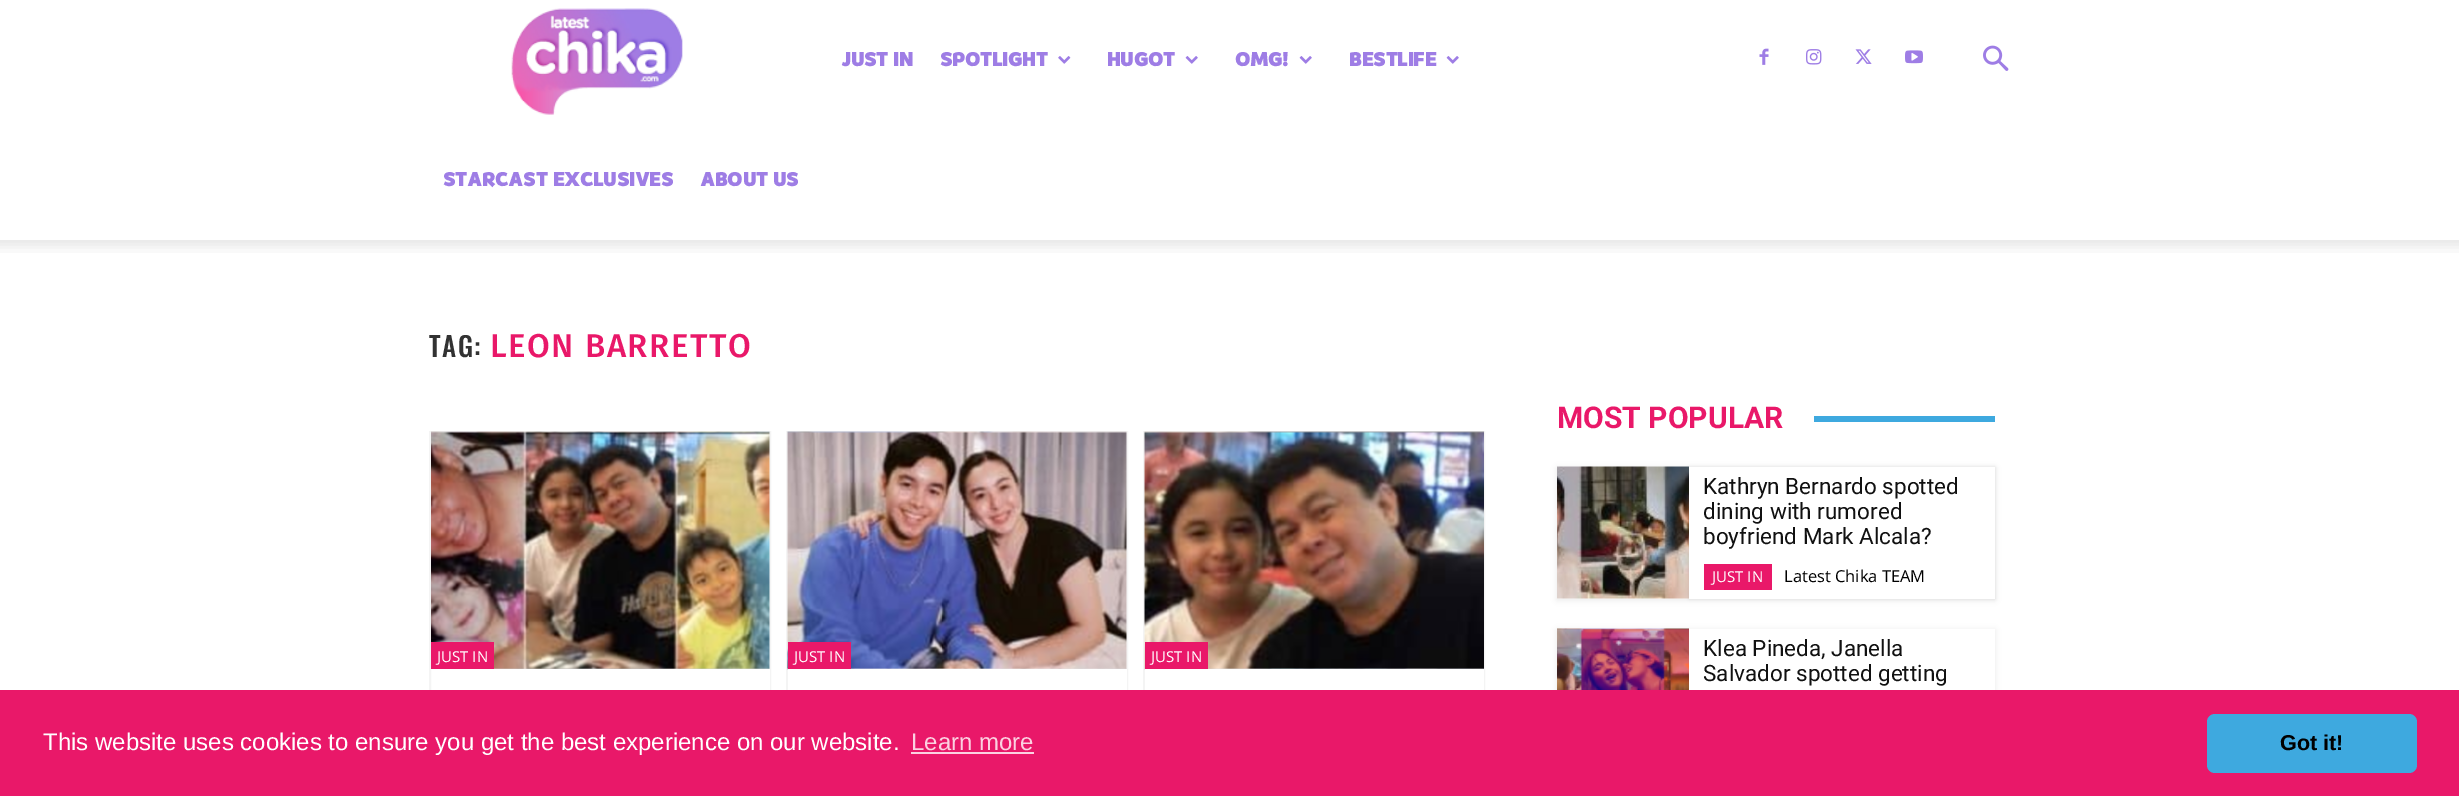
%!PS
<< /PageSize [2459 796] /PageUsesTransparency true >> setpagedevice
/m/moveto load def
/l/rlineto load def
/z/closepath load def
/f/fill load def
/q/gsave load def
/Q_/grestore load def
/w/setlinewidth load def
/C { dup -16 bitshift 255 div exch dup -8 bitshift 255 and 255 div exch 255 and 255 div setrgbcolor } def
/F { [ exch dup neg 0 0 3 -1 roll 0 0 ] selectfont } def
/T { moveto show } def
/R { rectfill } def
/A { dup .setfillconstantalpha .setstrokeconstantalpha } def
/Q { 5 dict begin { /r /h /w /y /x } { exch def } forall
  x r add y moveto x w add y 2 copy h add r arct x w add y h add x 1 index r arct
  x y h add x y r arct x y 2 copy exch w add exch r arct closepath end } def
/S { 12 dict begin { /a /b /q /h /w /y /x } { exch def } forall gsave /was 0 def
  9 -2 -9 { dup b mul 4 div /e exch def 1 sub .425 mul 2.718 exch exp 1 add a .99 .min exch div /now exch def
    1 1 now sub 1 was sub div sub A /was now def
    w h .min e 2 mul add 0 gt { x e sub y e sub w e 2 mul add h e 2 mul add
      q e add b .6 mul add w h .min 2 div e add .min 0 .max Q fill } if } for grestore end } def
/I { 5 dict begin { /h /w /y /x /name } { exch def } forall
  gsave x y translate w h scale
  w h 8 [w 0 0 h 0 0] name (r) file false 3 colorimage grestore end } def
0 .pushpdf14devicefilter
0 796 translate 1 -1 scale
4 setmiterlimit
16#FFFFFF C
0 0 2459 796 R
(1.rgb) 511 8 172 107 I
/BraahOne-Bold 21 F
16#9E7DE5 C
(JUST IN) 841 66 T
(SPOTLIGHT) 940 66 T
(2.rgb) 1058 56 13 8 I
(HUGOT) 1107 66 T
(3.rgb) 1185 56 13 8 I
(OMG!) 1235 66 T
(3.rgb) 1299 56 13 8 I
(BESTLIFE) 1349 66 T
(3.rgb) 1446 56 13 8 I
(STARCAST EXCLUSIVES) 443 186 T
(ABOUT US) 700 186 T
(4.rgb) 1759 48 10 17 I
(5.rgb) 1806 49 16 16 I
(6.rgb) 1855 49 17 15 I
(7.rgb) 1905 50 18 14 I
(8.rgb) 1983 45 26 26 I
(9.rgb) 0 240 2459 13 I
/Oswald-Medium 27 F
16#323232 C
429 357 m 1.5 0 (TAG:) ashow
/FiraSans-Medium 33 F
16#E91869 C
490 357 m 1.5 0 (LEON BARRETTO) ashow
16#F4F4F4 C
2 w
430 432 340 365 rectstroke
(10.rgb) 431 431 339 238 I
16#E91869 C
431 642 63 27 R
/OpenSans-Regular 15 F
16#FFFFFF C
(JUST IN) 437 662 T
769 669 1 21 R
16#F4F4F4 C
787 432 340 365 rectstroke
(11.rgb) 787 431 340 239 I
16#E91869 C
788 642 63 27 R
16#FFFFFF C
(JUST IN) 794 662 T
788 669 339 21 R
16#F4F4F4 C
1144 432 340 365 rectstroke
(12.rgb) 1144 431 340 239 I
16#E91869 C
1145 642 63 27 R
16#FFFFFF C
(JUST IN) 1151 662 T
1145 669 339 21 R
/Roboto-Bold 30 F
16#E91869 C
(MOST POPULAR) 1557 428 T
16#3EA9DF C
1814 416 181 6 R
16#000000 C
1557 468 438 132 0 3 .08 S
(13.rgb) 1557 466 132 133 I
1689 467 306 132 0 1.5 .08 S
16#FFFFFF C
1689 467 306 132 R
/Roboto-Regular 22.5 F
16#111111 C
(Kathryn Bernardo spotted) 1703 494 T
(dining with rumored) 1703 519 T
(boyfriend Mark Alcala?) 1703 544 T
16#E91869 C
1704 564 68 26 R
/OpenSans-Regular 15 F
16#FFFFFF C
(JUST IN) 1712 582 T
/OpenSans-Regular 16.5 F
16#000000 C
(Latest Chika TEAM) 1784 582 T
q
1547 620 m 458 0 l 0 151 l -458 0 l z 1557 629 m 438 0 l 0 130 l -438 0 l z eoclip newpath
1557 630 438 131 0 3 .08 S
Q_
(14.rgb) 1557 628 132 62 I
/Roboto-Regular 22.5 F
16#111111 C
(Klea Pineda, Janella) 1703 656 T
(Salvador spotted getting) 1703 681 T
16#E91869 C
0 690 2459 106 R
/LiberationSans-Regular 24 F
16#FFFFFF C
(This website uses cookies to ensure you get the best experience on our website.) 43 750 T
16#FBD1E1 C
(Learn more) 911 750 T
911 752 123 2 R
16#3EA9DF C
2207 714 210 59 8 Q f
/LiberationSans-Bold 21.5 F
16#000000 C
(Got it!) 2280 750 T
.poppdf14devicefilter showpage
